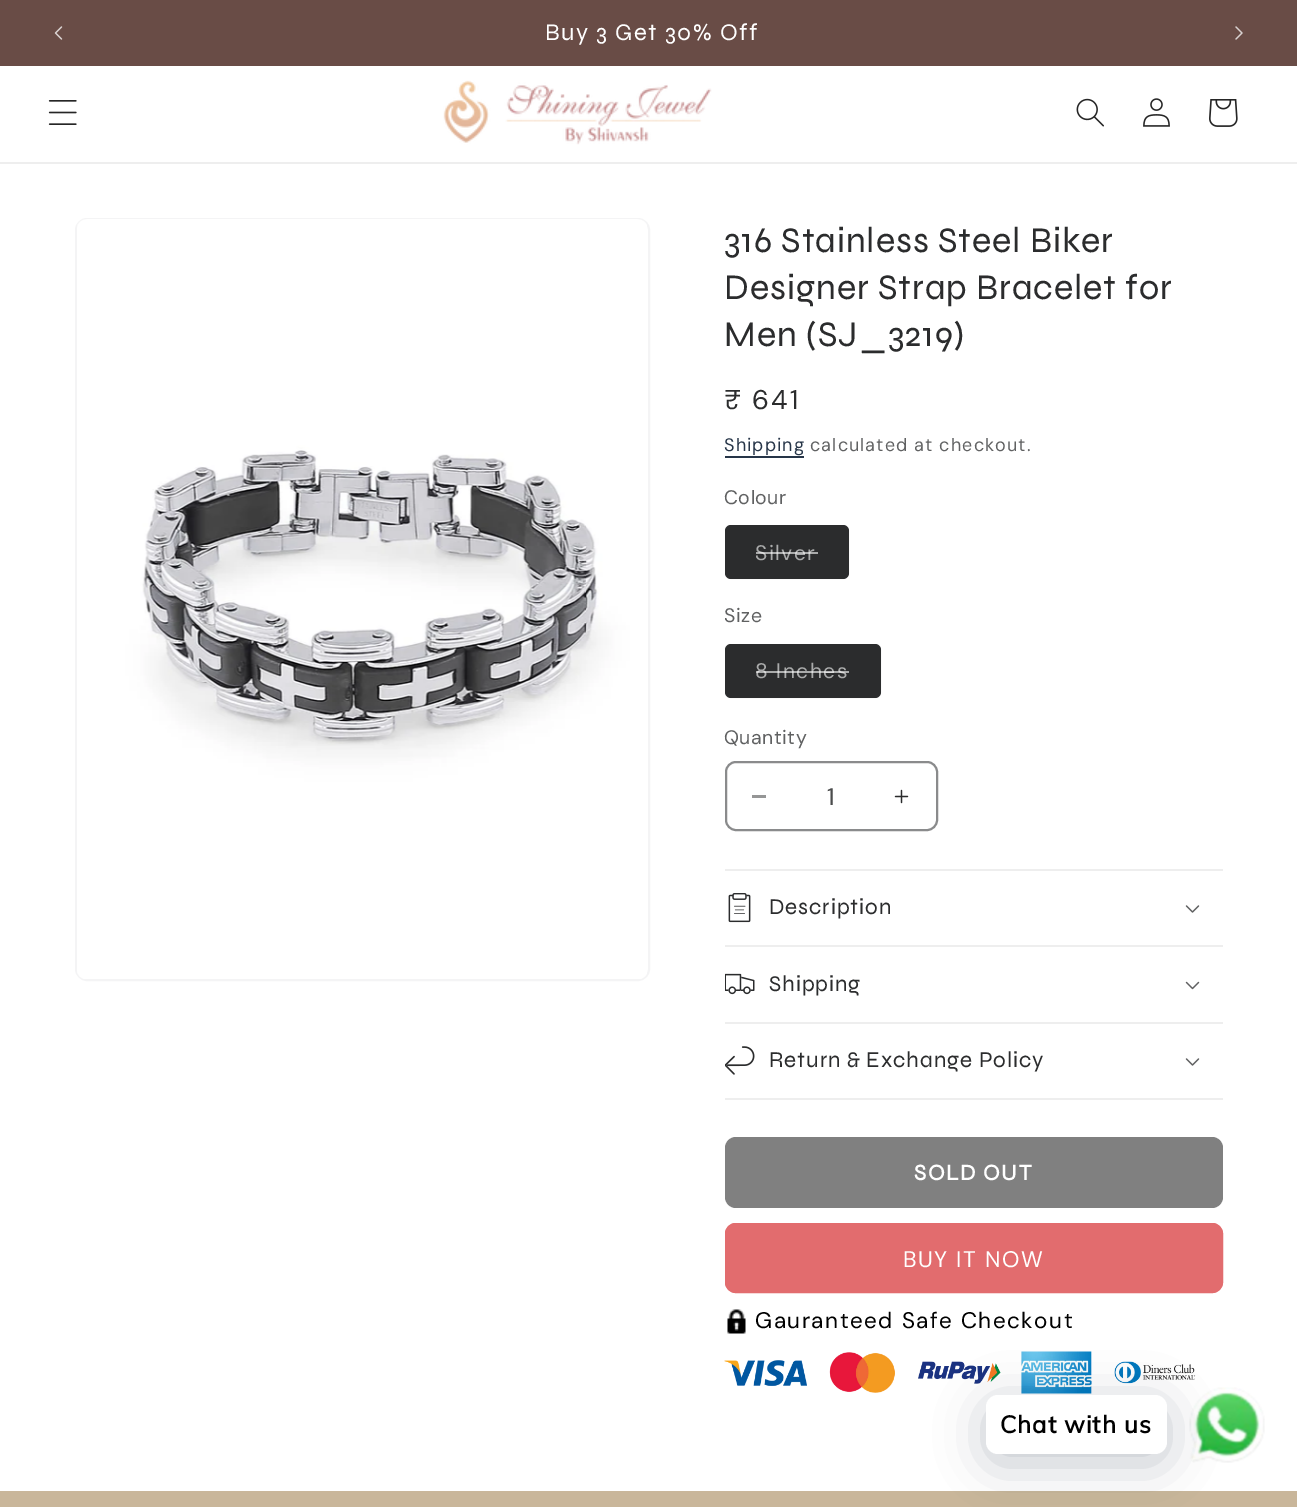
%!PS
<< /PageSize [1297 1507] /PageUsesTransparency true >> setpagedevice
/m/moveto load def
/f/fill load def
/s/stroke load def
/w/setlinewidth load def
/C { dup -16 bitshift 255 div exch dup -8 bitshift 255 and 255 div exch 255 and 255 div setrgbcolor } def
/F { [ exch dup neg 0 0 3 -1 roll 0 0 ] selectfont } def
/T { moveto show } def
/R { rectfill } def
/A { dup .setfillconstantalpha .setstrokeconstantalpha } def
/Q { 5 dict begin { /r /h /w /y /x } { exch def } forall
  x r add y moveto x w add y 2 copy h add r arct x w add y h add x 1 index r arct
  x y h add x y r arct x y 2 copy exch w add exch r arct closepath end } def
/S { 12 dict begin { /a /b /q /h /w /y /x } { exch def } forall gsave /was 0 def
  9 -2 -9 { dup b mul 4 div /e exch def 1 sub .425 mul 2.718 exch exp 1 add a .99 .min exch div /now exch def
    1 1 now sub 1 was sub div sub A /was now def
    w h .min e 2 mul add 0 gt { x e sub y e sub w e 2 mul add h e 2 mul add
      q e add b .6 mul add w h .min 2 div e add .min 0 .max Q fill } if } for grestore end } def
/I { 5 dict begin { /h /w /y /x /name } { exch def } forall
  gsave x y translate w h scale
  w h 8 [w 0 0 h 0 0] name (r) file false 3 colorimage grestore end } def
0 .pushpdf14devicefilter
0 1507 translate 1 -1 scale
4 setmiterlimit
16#FFFFFF C
0 0 1297 1507 R
16#694C46 C
0 0 1297 66 R
(1.rgb) 54 26 9 14 I
/Syne-Regular 24 F
16#FFFFFF C
545 40 m 1.5 0 (Buy 3 Get 30% Off) ashow
(2.rgb) 1235 26 8 14 I
16#EEEEEE C
0 162 1297 2 R
(3.rgb) 48 100 29 25 I
(4.rgb) 443 80 269 65 I
(5.rgb) 1076 98 28 29 I
(6.rgb) 1143 98 27 29 I
(7.rgb) 1209 99 29 28 I
16#F4F4F5 C
2 w
76 219 573 761 11 Q s
(8.rgb) 77 219 570 760 I
/Syne-Regular 36 F
16#2B2C2D C
724 252 m .9 0 (316 Stainless Steel Biker) ashow
724 299 m .9 0 (Designer Strap Bracelet for) ashow
724 346 m .9 0 (Men \(SJ_3219\)) ashow
/DMSans-Regular 27 F
724 409 m 2 0 (₹ 641) ashow
/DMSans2-Regular 18 F
16#263548 C
724 451 m 1.05 0 (Shipping) ashow
725 456 79 2 R
16#606162 C
810 451 m 1.05 0 (calculated at checkout.) ashow
/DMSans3-Regular 19.5 F
724 504 m .5 0 (Colour) ashow
16#2B2C2D C
725 525 124 54 6 Q f
0.1 A
726 526 122 52 5 Q s
/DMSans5-Regular 21 F
1 A
16#AAABAB C
755 560 m 1.5 0 (Silver) ashow
0.6 A
16#FFFFFF C
756 552 62 2 R
/DMSans3-Regular 19.5 F
1 A
16#606162 C
724 622 m .5 0 (Size) ashow
16#2B2C2D C
725 644 156 54 6 Q f
0.1 A
726 645 154 52 5 Q s
/DMSans5-Regular 21 F
1 A
16#AAABAB C
755 678 m 1.5 0 (8 Inches) ashow
0.6 A
16#FFFFFF C
756 671 93 2 R
/DMSans3-Regular 19.5 F
1 A
16#606162 C
724 744 m .5 0 (Quantity) ashow
16#959696 C
752 795 14 3 R
(9.rgb) 894 789 15 15 I
16#8A8B8C C
726 762 211 68 10 Q s
/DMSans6-Regular 24 F
16#4B4C4D C
(1) 827 805 T
16#EEEEEE C
725 869 498 2 R
725 945 498 2 R
(10.rgb) 728 893 23 30 I
/Syne-Regular 22.5 F
16#2B2C2D C
769 914 m .9 0 (Description) ashow
(11.rgb) 1185 905 15 8 I
16#EEEEEE C
725 1022 498 2 R
(12.rgb) 725 973 30 22 I
16#2B2C2D C
769 991 m .9 0 (Shipping) ashow
(13.rgb) 1185 981 15 9 I
16#EEEEEE C
725 1098 498 2 R
(14.rgb) 725 1046 30 29 I
16#2B2C2D C
769 1067 m .9 0 (Return & Exchange Policy) ashow
(11.rgb) 1185 1058 15 8 I
16#808080 C
725 1137 498 71 11 Q f
/Syne-Bold 22.5 F
16#FFFFFF C
914 1180 m 1.5 0 (SOLD OUT) ashow
16#E26C6E C
725 1223 498 70 11 Q f
726 1224 496 68 10 Q s
/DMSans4-Regular 22.5 F
16#FFFFFF C
903 1267 m 1.5 0 (BUY IT NOW) ashow
(15.rgb) 727 1309 19 25 I
16#000000 C
755 1328 m 1.5 0 (Gauranteed Safe Checkout) ashow
(16.rgb) 724 1360 83 26 I
(17.rgb) 829 1352 66 41 I
(18.rgb) 918 1361 83 23 I
(19.rgb) 1021 1351 71 43 I
(20.rgb) 1114 1361 82 23 I
16#C9B69A C
0 1491 1297 16 R
(21.rgb) 1189 1387 76 76 I
16#00122E C
986 1404 181 59 12 24 .24 S
16#FFFFFF C
986 1395 181 59 12 Q f
/Muli-Bold 24 F
16#000000 C
1000 1433 m .9 0 (Chat with us) ashow
.poppdf14devicefilter showpage
